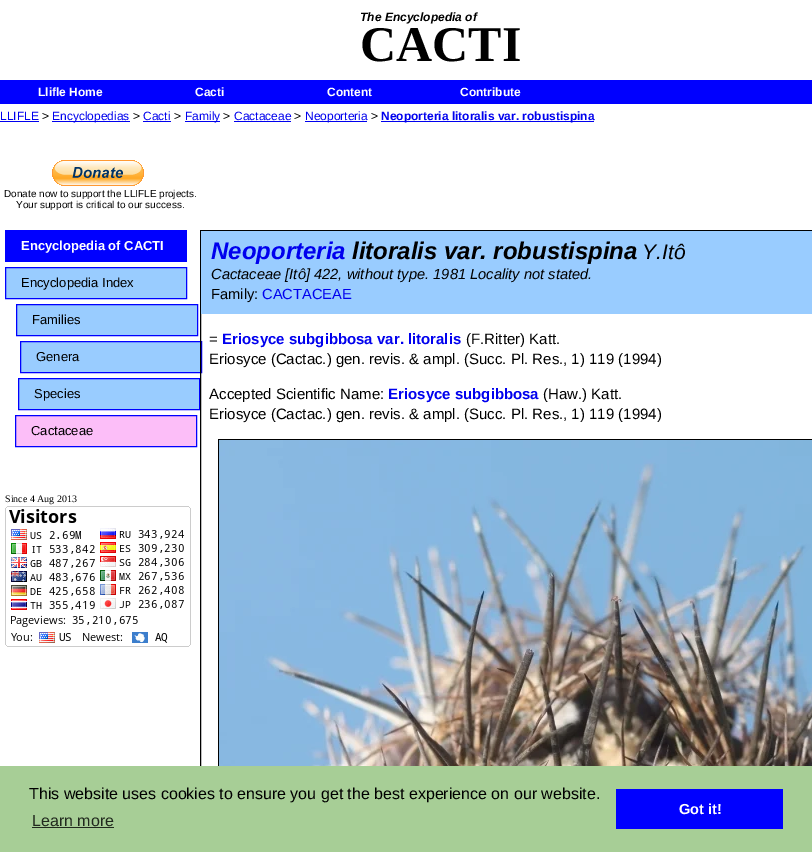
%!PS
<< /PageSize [812 852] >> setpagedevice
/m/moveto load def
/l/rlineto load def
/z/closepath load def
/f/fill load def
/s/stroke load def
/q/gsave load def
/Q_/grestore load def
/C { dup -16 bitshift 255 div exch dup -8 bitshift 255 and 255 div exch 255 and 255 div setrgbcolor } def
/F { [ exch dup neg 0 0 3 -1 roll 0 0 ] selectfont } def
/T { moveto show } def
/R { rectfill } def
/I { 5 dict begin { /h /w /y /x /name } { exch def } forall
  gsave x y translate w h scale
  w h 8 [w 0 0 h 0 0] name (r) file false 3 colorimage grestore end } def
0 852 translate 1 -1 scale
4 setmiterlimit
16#FFFFFF C
0 0 812 852 R
/LiberationSans-BoldItalic 12 F
16#000000 C
(The Encyclopedia of) 360 21 T
/LiberationSerif-Bold 50 F
(CACTI) 360 61 T
16#0000FF C
0 80 812 24 R
/LiberationSans-Bold 12 F
16#FFFFFF C
(Llifle Home) 38 96 T
(Cacti) 195 96 T
(Content) 327 96 T
(Contribute) 460 96 T
/LiberationSans-Regular 12 F
16#0000EE C
(LLIFLE) 0 120 T
0 121 39 1 R
16#000000 C
(>) 42 120 T
16#0000EE C
52 121 78 1 R
(Encyclopedias) 52 120 T
16#000000 C
(>) 133 120 T
16#0000EE C
(Cacti) 143 120 T
143 121 28 1 R
16#000000 C
(>) 174 120 T
16#0000EE C
185 121 35 1 R
(Family) 185 120 T
16#000000 C
(>) 223 120 T
16#0000EE C
(Cactaceae) 234 120 T
234 121 57 1 R
16#000000 C
(>) 294 120 T
16#0000EE C
305 121 62 1 R
(Neoporteria) 305 120 T
16#000000 C
(>) 371 120 T
16#0000EE C
381 121 213 1 R
/LiberationSans-Bold 12 F
(Neoporteria litoralis var. robustispina) 381 120 T
(1.rgb) 52 160 92 26 I
/LiberationSans-Regular 10 F
16#000000 C
(Donate now to support the LLIFLE projects.) 4 197 T
(Your support is critical to our success.) 16 208 T
16#0000FF C
5 230 182 32 R
/LiberationSans-Bold 13 F
16#FFFFFF C
(Encyclopedia of CACTI) 21 250 T
16#99CCFF C
5.5 267.5 m 181 0 l 0 31 l -181 0 l z q f Q_
16#0000FF C
s
/LiberationSans-Regular 13 F
16#000000 C
(Encyclopedia Index) 21 287 T
16#99CCFF C
16.5 304.5 m 181 0 l 0 31 l -181 0 l z q f Q_
16#0000FF C
s
16#000000 C
(Families) 32 324 T
16#99CCFF C
21 342 179 30 R
16#0000FF C
20.5 341.5 181 31 rectstroke
16#000000 C
(Genera) 36 361 T
16#99CCFF C
18.5 378.5 m 181 0 l 0 31 l -181 0 l z q f Q_
16#0000FF C
s
16#000000 C
(Species) 34 398 T
16#FCBEF8 C
15.5 415.5 m 181 0 l 0 31 l -181 0 l z q f Q_
16#0000FF C
s
16#000000 C
(Cactaceae) 31 435 T
/LiberationSerif-Regular 10 F
(Since 4 Aug 2013) 5 502 T
(2.rgb) 5 506 186 141 I
200.5 230.5 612 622 rectstroke
16#99CCFF C
201 231 611 83 R
/LiberationSans-BoldItalic 24 F
16#0000EE C
(Neoporteria) 211 259 T
16#000000 C
(litoralis var. robustispina) 352 259 T
/LiberationSans-Italic 21 F
(Y.Itô) 642 259 T
/LiberationSans-Italic 14.7 F
(Cactaceae [Itô] 422, without type. 1981 Locality not stated.) 211 279 T
/LiberationSans-Regular 14.7 F
(Family:) 211 299 T
16#0000EE C
(CACTACEAE) 262 299 T
/LiberationSans-Regular 15 F
16#000000 C
(=) 209 344 T
/LiberationSans-Bold 15 F
16#0000EE C
(Eriosyce subgibbosa var. litoralis) 222 344 T
/LiberationSans-Regular 15 F
16#000000 C
(\(F.Ritter\) Katt.) 466 344 T
(Eriosyce \(Cactac.\) gen. revis. & ampl. \(Succ. Pl. Res., 1\) 119 \(1994\)) 209 364 T
(Accepted Scientific Name:) 209 399 T
/LiberationSans-Bold 15 F
16#0000EE C
(Eriosyce subgibbosa) 388 399 T
/LiberationSans-Regular 15 F
16#000000 C
(\(Haw.\) Katt.) 543 399 T
(Eriosyce \(Cactac.\) gen. revis. & ampl. \(Succ. Pl. Res., 1\) 119 \(1994\)) 209 419 T
218.5 439.5 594 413 rectstroke
(3.rgb) 219 440 593 326 I
16#A7CE96 C
0 766 812 86 R
/LiberationSans-Regular 16 F
16#000000 C
(This website uses cookies to ensure you get the best experience on our website.) 29 799 T
16#21291E C
(Learn more) 32 826 T
32 827 82 1 R
16#0000FF C
616 789 167 40 R
/LiberationSans-Bold 14.5 F
16#FFFFFF C
(Got it!) 679 814 T
showpage
